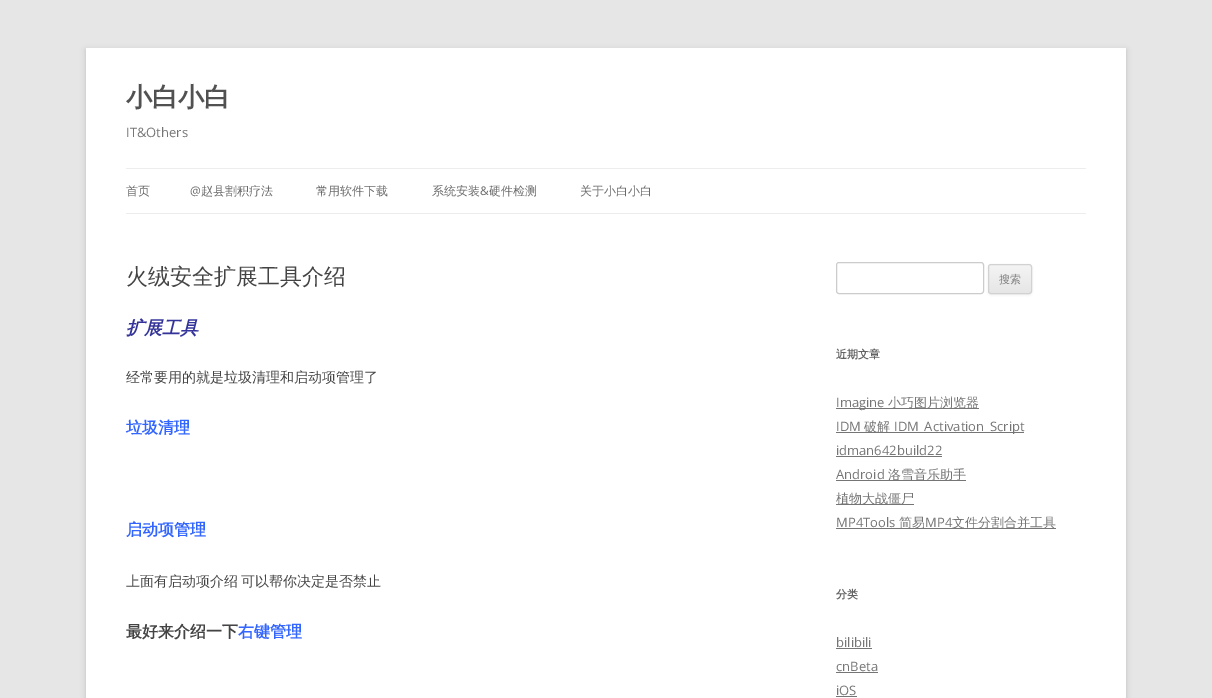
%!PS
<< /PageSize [1212 698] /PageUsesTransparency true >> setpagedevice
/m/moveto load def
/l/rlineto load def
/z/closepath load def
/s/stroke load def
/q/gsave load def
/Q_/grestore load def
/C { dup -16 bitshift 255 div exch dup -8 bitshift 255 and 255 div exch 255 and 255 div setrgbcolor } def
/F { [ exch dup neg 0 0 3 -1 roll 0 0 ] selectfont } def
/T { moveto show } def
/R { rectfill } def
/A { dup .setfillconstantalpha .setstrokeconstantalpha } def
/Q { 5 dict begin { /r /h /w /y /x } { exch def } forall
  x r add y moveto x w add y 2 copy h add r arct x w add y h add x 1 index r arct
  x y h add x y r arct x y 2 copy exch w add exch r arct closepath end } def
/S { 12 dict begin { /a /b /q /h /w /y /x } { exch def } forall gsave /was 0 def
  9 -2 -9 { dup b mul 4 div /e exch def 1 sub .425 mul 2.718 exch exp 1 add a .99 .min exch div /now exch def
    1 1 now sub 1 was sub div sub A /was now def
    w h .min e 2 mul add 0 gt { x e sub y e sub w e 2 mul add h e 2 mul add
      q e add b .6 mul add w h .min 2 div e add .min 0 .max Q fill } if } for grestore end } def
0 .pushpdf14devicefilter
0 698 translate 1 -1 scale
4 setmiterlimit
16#E6E6E6 C
0 0 1212 698 R
16#646464 C
86 50 1040 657 0 3 .3 S
16#FFFFFF C
86 48 1040 650 R
/WenQuanYiZenHei-Bold 26 F
16#515151 C
(小白小白) 126 106 T
/OpenSans-Regular 13 F
16#757575 C
(IT&Others) 126 137 T
16#EDEDED C
126 168 960 1 R
126 213 960 1 R
/WenQuanYiZenHei-Medium 12 F
16#6A6A6A C
(首页) 126 195 T
/OpenSans-Regular 12 F
(@) 190 195 T
/WenQuanYiZenHei-Medium 12 F
(赵县割积疗法) 201 195 T
(常用软件下载) 316 195 T
(系统安装) 432 195 T
/OpenSans-Regular 12 F
(&) 480 195 T
/WenQuanYiZenHei-Medium 12 F
(硬件检测) 489 195 T
(关于小白小白) 580 195 T
/WenQuanYiZenHei-Medium 22 F
16#444444 C
(火绒安全扩展工具介绍) 126 284 T
/WenQuanYiZenHei-BoldItalic 18 F
16#333399 C
(扩展工具) 126 334 T
/WenQuanYiZenHei-Medium 14 F
16#444444 C
(经常要用的就是垃圾清理和启动项管理了) 126 382 T
/WenQuanYiZenHei-Bold 16 F
16#3366FF C
(垃圾清理) 126 433 T
(启动项管理) 126 535 T
/WenQuanYiZenHei-Medium 14 F
16#444444 C
126 586 m -1 0 32 (上面有启动项介绍 可以帮你决定是否禁止) widthshow
/WenQuanYiZenHei-Bold 16 F
(最好来介绍一下) 126 637 T
16#3366FF C
(右键管理) 238 637 T
16#CCCCCC C
836.5 262.5 147 31 2.5 Q s
16#404040 C
988 265 44 30 3 1 .1 S
q
988 264 44 30 3 Q clip newpath
q 988 265 m 44 0 l 0 28 l -44 0 l z clip newpath
<< /ShadingType 2 /ColorSpace /DeviceRGB /Coords [1010 265 1010 293] /Extend [true true] /Function << /FunctionType 2 /Domain [0 1] /C0 [.957 .957 .957] /C1 [.902 .902 .902] /N 1 >> >> shfill Q_
Q_
16#D2D2D2 C
988.5 264.5 43 29 2.5 Q s
/WenQuanYiZenHei-Medium 11 F
16#7C7C7C C
(搜索) 999 283 T
/WenQuanYiZenHei-Bold 11 F
16#636363 C
(近期文章) 836 358 T
16#757575 C
836 408 143 1 R
/OpenSans-Regular 13 F
(Imagine) 836 407 T
/WenQuanYiZenHei-Medium 13 F
(小巧图片浏览器) 888 407 T
/OpenSans-Regular 13 F
(IDM) 836 431 T
836 432 188 1 R
/WenQuanYiZenHei-Medium 13 F
(破解) 864 431 T
/OpenSans-Regular 13 F
(IDM_Activation_Script) 894 431 T
(idman642build22) 836 455 T
836 456 106 1 R
(Android) 836 479 T
836 480 130 1 R
/WenQuanYiZenHei-Medium 13 F
(洛雪音乐助手) 888 479 T
836 504 78 1 R
(植物大战僵尸) 836 503 T
/OpenSans-Regular 13 F
(MP4Tools) 836 527 T
836 528 220 1 R
/WenQuanYiZenHei-Medium 13 F
(简易) 899 527 T
/OpenSans-Regular 13 F
(MP4) 925 527 T
/WenQuanYiZenHei-Medium 13 F
(文件分割合并工具) 952 527 T
/WenQuanYiZenHei-Bold 11 F
16#636363 C
(分类) 836 598 T
/OpenSans-Regular 13 F
16#757575 C
(bilibili) 836 647 T
836 648 36 1 R
(cnBeta) 836 671 T
836 672 42 1 R
(iOS) 836 695 T
836 696 21 1 R
.poppdf14devicefilter showpage
